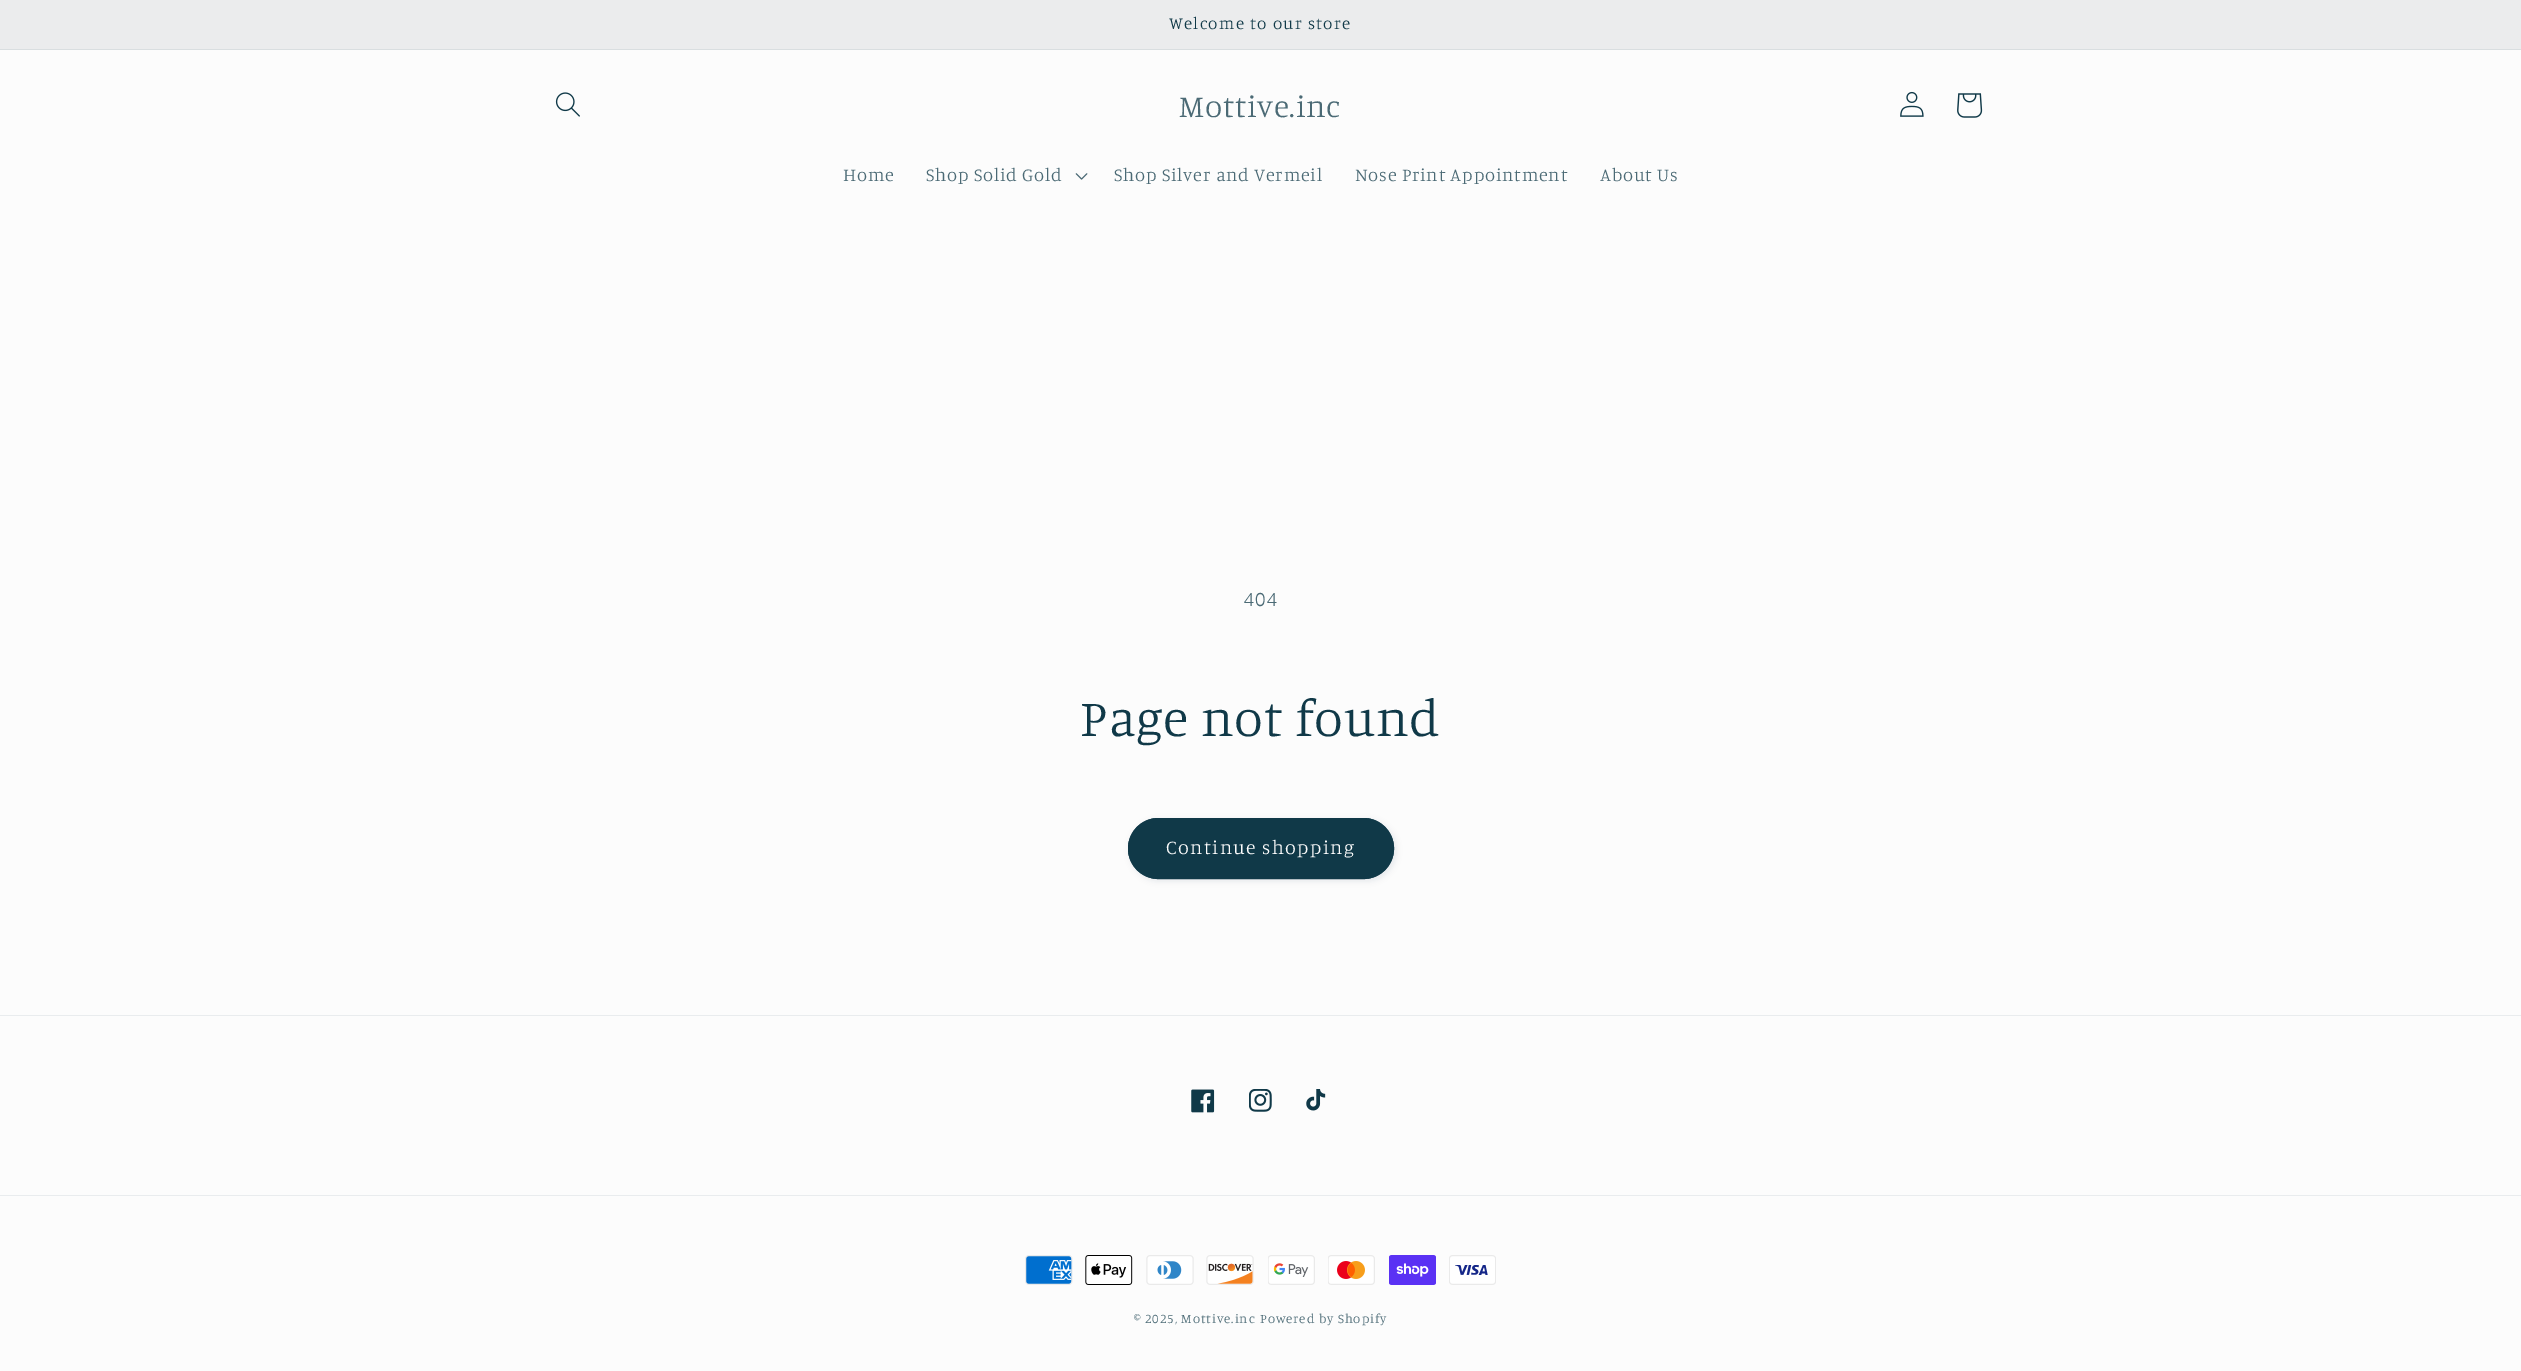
%!PS
<< /PageSize [2521 1371] /PageUsesTransparency true >> setpagedevice
/m/moveto load def
/f/fill load def
/s/stroke load def
/C { dup -16 bitshift 255 div exch dup -8 bitshift 255 and 255 div exch 255 and 255 div setrgbcolor } def
/F { [ exch dup neg 0 0 3 -1 roll 0 0 ] selectfont } def
/R { rectfill } def
/A { dup .setfillconstantalpha .setstrokeconstantalpha } def
/Q { 5 dict begin { /r /h /w /y /x } { exch def } forall
  x r add y moveto x w add y 2 copy h add r arct x w add y h add x 1 index r arct
  x y h add x y r arct x y 2 copy exch w add exch r arct closepath end } def
/S { 12 dict begin { /a /b /q /h /w /y /x } { exch def } forall gsave /was 0 def
  9 -2 -9 { dup b mul 4 div /e exch def 1 sub .425 mul 2.718 exch exp 1 add a .99 .min exch div /now exch def
    1 1 now sub 1 was sub div sub A /was now def
    w h .min e 2 mul add 0 gt { x e sub y e sub w e 2 mul add h e 2 mul add
      q e add b .6 mul add w h .min 2 div e add .min 0 .max Q fill } if } for grestore end } def
/I { 5 dict begin { /h /w /y /x /name } { exch def } forall
  gsave x y translate w h scale
  w h 8 [w 0 0 h 0 0] name (r) file false 3 colorimage grestore end } def
0 .pushpdf14devicefilter
0 1371 translate 1 -1 scale
4 setmiterlimit
16#FCFCFC C
0 0 2521 1371 R
16#EBECED C
0 0 2521 49 R
16#D9DEE0 C
0 49 2521 1 R
/Manuale-Light 17 F
16#103948 C
1169 29 m 1.3 0 (Welcome to our store) ashow
(1.rgb) 555 92 25 25 I
/Manuale-Light 31.5 F
16#4B6A75 C
1179 117 m .75 0 (Mottive.inc) ashow
(2.rgb) 1900 91 24 26 I
(3.rgb) 1957 93 26 25 I
/Manuale-Light 18.4 F
843 181 m .75 0 (Home) ashow
926 181 m .75 0 (Shop Solid Gold) ashow
(4.rgb) 1075 173 13 7 I
1114 181 m .75 0 (Shop Silver and Vermeil) ashow
1355 181 m .75 0 (Nose Print Appointment) ashow
1600 181 m .75 0 (About Us) ashow
/Manuale-Light 21 F
1244 606 m .75 0 (404) ashow
/Manuale-Light 52.5 F
16#103948 C
1080 736 m .75 0 (Page not found) ashow
1130 820 266 61 30.5 3 .1 S
1128 818 266 61 30.5 Q f
1128.5 818.5 265 60 30 Q s
/Manuale-Light 19.75 F
16#FCFCFC C
1166 854 m 1.3 0 (Continue shopping) ashow
16#E9ECEE C
0 1015 2521 1 R
(5.rgb) 1191 1089 24 24 I
(6.rgb) 1249 1089 23 23 I
(7.rgb) 1306 1089 20 22 I
0 1195 2521 1 R
(8.rgb) 1025 1255 48 30 I
(9.rgb) 1085 1255 48 30 I
(10.rgb) 1146 1255 48 30 I
(11.rgb) 1206 1255 48 30 I
(12.rgb) 1268 1255 47 30 I
(13.rgb) 1328 1255 47 30 I
(14.rgb) 1389 1255 47 30 I
(15.rgb) 1449 1255 47 30 I
/Manuale-Light 13.1 F
16#4B6A75 C
1134 1323 m .9 0 (© 2025, Mottive.inc) ashow
1260 1323 m .9 0 (Powered by Shopify) ashow
.poppdf14devicefilter showpage
